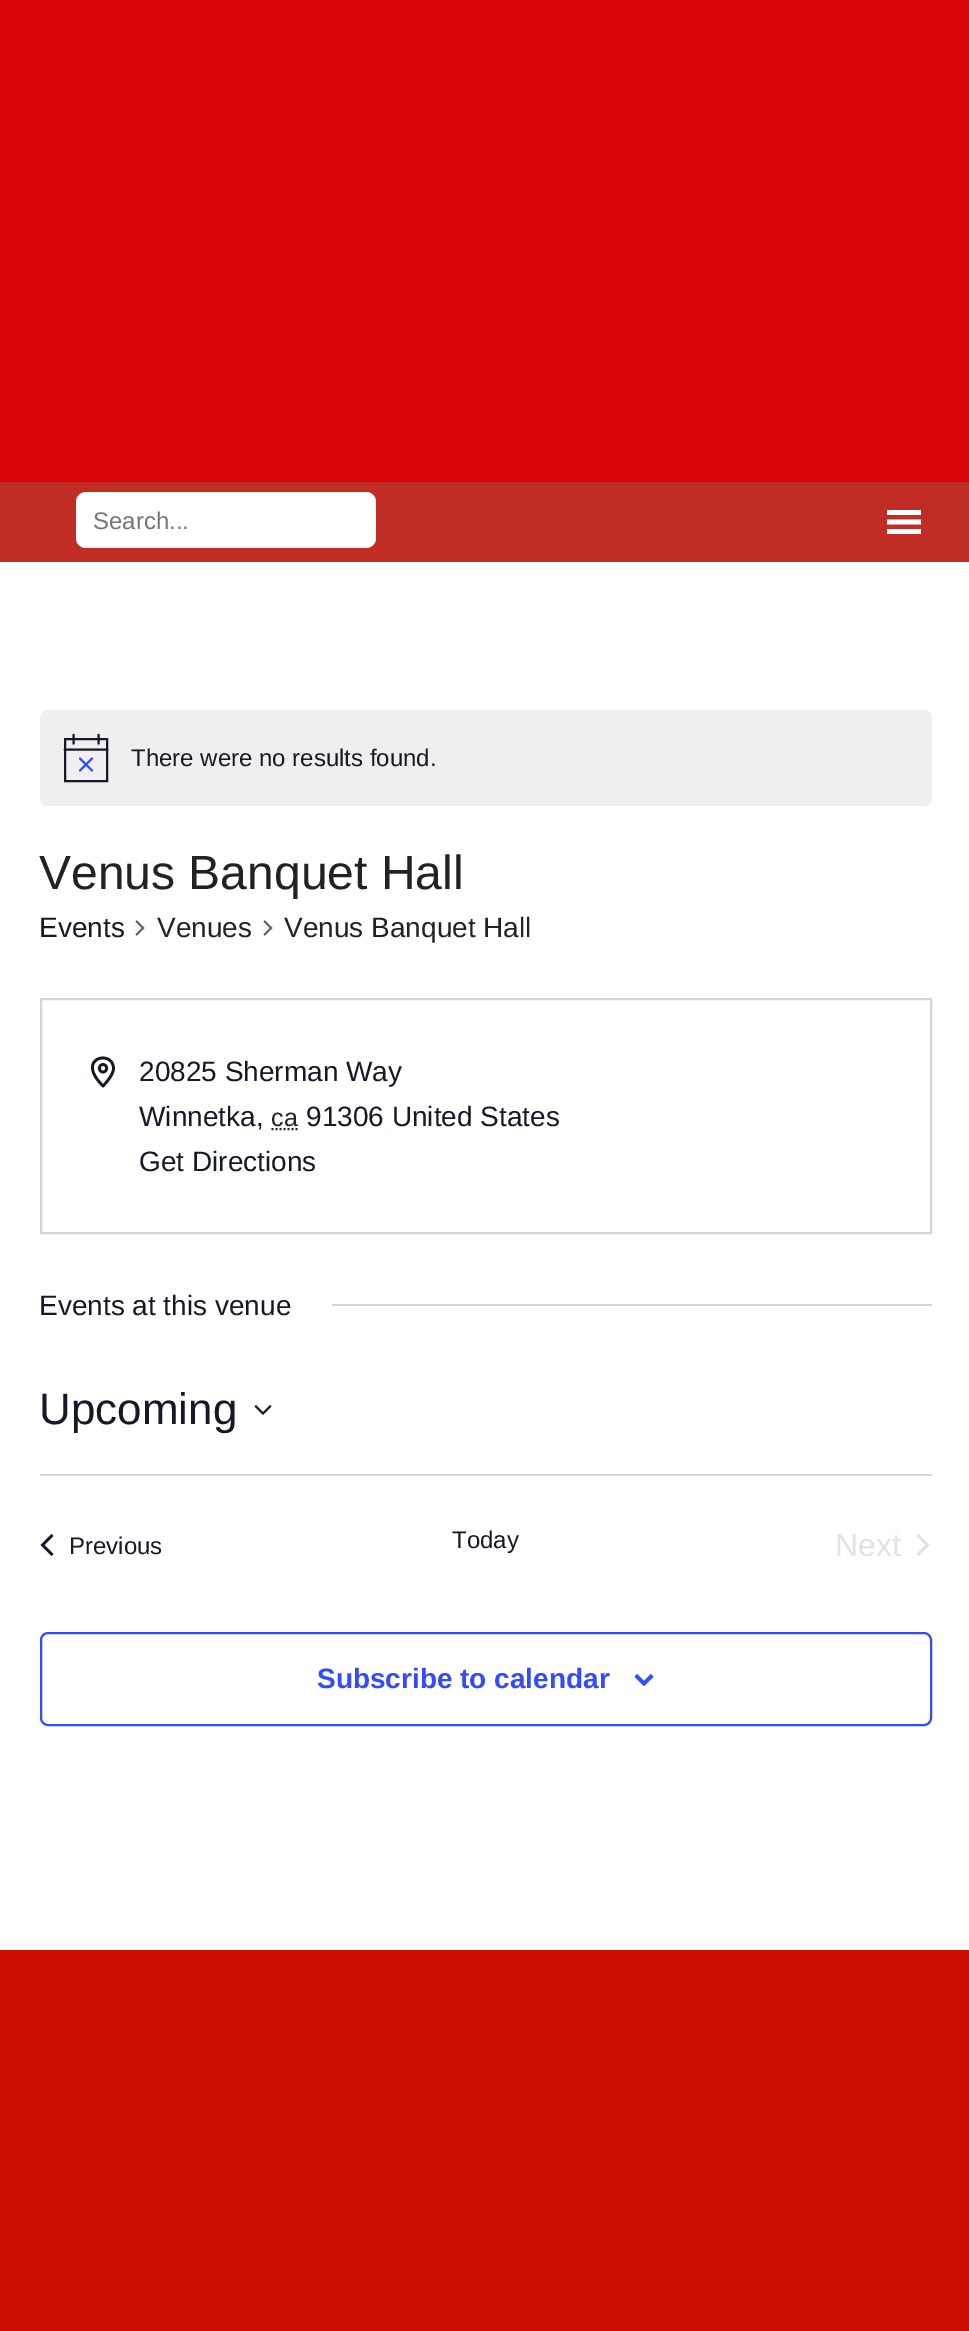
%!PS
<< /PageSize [969 2331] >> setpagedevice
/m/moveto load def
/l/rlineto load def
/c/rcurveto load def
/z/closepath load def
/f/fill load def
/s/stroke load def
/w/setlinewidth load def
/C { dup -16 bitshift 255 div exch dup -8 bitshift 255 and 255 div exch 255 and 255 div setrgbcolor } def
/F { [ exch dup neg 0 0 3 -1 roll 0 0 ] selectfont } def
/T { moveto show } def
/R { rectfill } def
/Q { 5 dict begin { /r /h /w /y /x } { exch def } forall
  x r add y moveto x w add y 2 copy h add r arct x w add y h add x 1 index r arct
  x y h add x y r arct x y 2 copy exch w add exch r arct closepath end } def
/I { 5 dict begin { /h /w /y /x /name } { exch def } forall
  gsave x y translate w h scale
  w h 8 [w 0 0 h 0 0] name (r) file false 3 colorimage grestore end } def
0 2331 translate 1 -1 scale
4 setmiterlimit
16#FFFFFF C
0 0 969 2331 R
16#D80609 C
0 0 969 482 R
16#C12C24 C
0 482 969 80 R
16#FFFFFF C
76 492 300 56 10 Q f
/LiberationSans-Regular 24 F
16#757575 C
(Search...) 93 529 T
16#FFFFFF C
887 534 m 34 0 l 0 -5 l -34 0 l z 887 510 m 0 5 l 34 0 l 0 -5 l z 887 524.5 m 34 0 l 0 -5 l -34 0 l z f
16#EFEFF0 C
40 710 892 96 8 Q f
16#141827 C
2.1 w
65 739 m 42 0 l 0 42 l -42 0 l z s
16#334AFF C
1 setlinecap
80 758.5 m 12 12 l 92 758.5 m -12 12 l s
16#141827 C
73.5 735 m 0 8.5 l 98.5 735 m 0 8.5 l s
2 setlinecap
65 749.5 m 42 0 l s
(There were no results found.) 131 766 T
/LiberationSans-Regular 48 F
16#222222 C
(Venus Banquet Hall) 39 889 T
/LiberationSans-Regular 28 F
16#141827 C
(Events) 39 937 T
(1.rgb) 135 920 10 16 I
16#222222 C
(Venues) 157 937 T
(1.rgb) 263 920 10 16 I
(Venus Banquet Hall) 284 937 T
16#D5D5D5 C
2 w
0 setlinecap
41 999 890 234 rectstroke
16#141827 C
2.7 w
1 setlinecap
1 setlinejoin
113.5 1068.5 m 0 7 -10.5 17.5 -10.5 17.5 c -29 -28.5 10.5 -37 10.5 -17.5 c z 103 1072 m 5 0 5 -7.5 0 -7.5 c -5 0 -5 7.5 0 7.5 c z s
(20825 Sherman Way) 139 1081 T
(Winnetka,) 139 1126 T
/LiberationSans-Regular 25 F
16#222222 C
(ca) 271 1126 T
2 w
0 setlinecap
0 setlinejoin
[2 2] 0 setdash
271.5 1129 m 26.5 0 l s
/LiberationSans-Regular 28 F
16#141827 C
(91306 United States) 306 1126 T
(Get Directions) 139 1171 T
(Events at this venue) 39 1315 T
16#D5D5D5 C
332 1304 600 2 R
/LiberationSans-Regular 44 F
16#141827 C
(Upcoming) 39 1424 T
256 1405 m 7 7 l 7 -7 l 1.5 1.5 l -8.5 8.5 l -8.5 -8.5 l z eofill
16#D5D5D5 C
40 1474 892 2 R
16#141827 C
53.5 1554 m -2 2 l -11 -11 l 11 -11 l 2 2 l -9 9 l z f
/LiberationSans-Regular 24 F
(Previous) 69 1554 T
(Today) 452 1548 T
/LiberationSans-Regular 32 F
16#E2E2E2 C
(Next) 835 1556 T
916.5 1536 m 2 -2 l 11 11 l -11 11 l -2 -2 l 9 -9 l z f
16#334AFF C
[] 0 setdash
41 1633 890 92 7 Q s
/LiberationSans-Bold 28 F
(Subscribe to calendar) 317 1688 T
(2.rgb) 634 1674 20 12 I
16#CB0D01 C
0 1950 969 381 R
showpage
